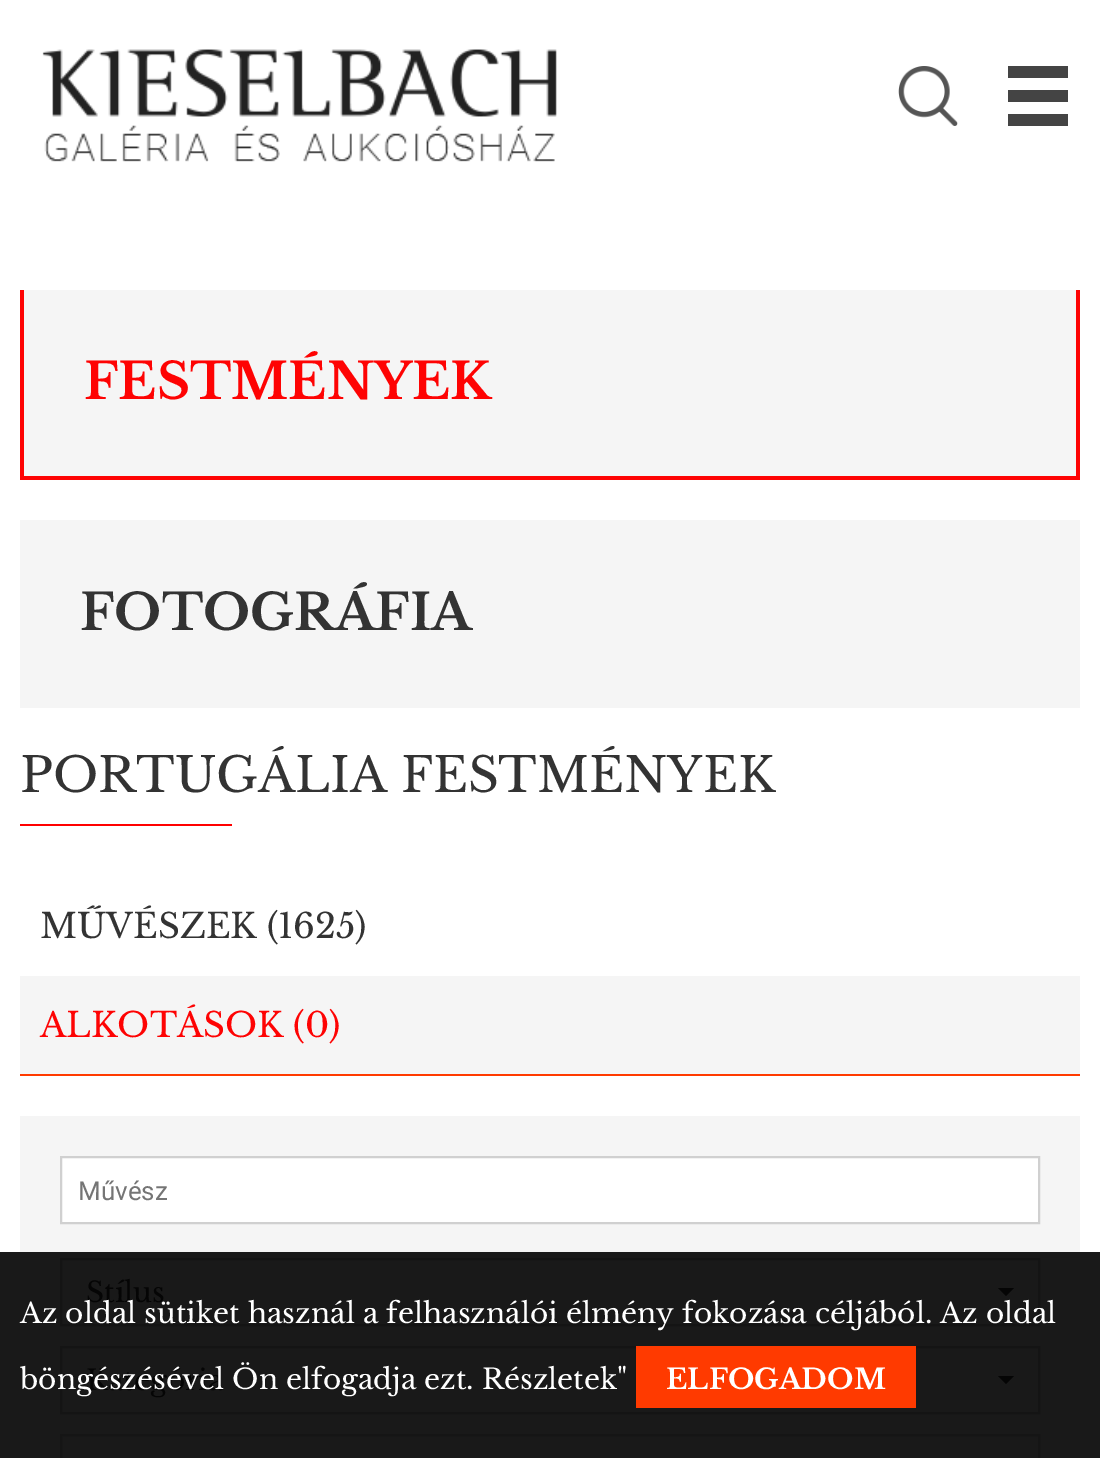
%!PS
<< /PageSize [1100 1458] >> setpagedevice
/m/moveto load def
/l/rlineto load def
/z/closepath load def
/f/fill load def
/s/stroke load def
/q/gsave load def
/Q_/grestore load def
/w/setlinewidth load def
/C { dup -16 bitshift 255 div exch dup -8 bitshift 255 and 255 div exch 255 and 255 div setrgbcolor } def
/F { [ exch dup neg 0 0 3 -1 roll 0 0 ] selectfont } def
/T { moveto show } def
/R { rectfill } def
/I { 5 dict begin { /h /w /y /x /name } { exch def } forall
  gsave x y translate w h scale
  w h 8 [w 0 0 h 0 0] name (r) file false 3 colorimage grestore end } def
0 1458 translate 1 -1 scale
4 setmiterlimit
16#FFFFFF C
0 0 1100 1458 R
16#191919 C
0 1252 1100 206 R
(1.rgb) 42 49 515 113 I
(2.rgb) 898 66 60 60 I
16#444444 C
1008 66 m 60 0 l 0 12 l -60 0 l z 1008 90 m 60 0 l 0 12 l -60 0 l z 1008 114 m 60 0 l 0 12 l -60 0 l z f
16#FE0303 C
1076 290 4 190 R
20 476 1060 4 R
20 290 4 190 R
16#F5F5F5 C
24 290 1052 186 R
/LibreBaskerville-Bold 50 F
16#FE0303 C
(FESTMÉNYEK) 84 399 T
16#F5F5F5 C
20 520 1060 188 R
16#333333 C
(FOTOGRÁFIA) 80 630 T
/LibreBaskerville-Regular 48 F
(PORTUGÁLIA FESTMÉNYEK) 20 792 T
16#FF0000 C
20 824 212 2 R
16#FF3A00 C
20 1074 1060 2 R
/LibreBaskerville-Regular 34 F
16#333333 C
(MŰVÉSZEK \(1625\)) 40 938 T
16#F5F5F5 C
20 976 1060 98 R
16#FE0303 C
(ALKOTÁSOK \(0\)) 40 1037 T
16#F5F5F5 C
20 1116 1060 136 R
16#FFFFFF C
61 1157 m 978 0 l 0 66 l -978 0 l z q f Q_
16#D0D0D0 C
2 w
s
/Roboto-Regular 26 F
16#757575 C
(Művész) 78 1200 T
16#141414 C
61 1259 978 66 rectstroke
/LibreBaskerville-Regular 28 F
16#050505 C
(Stílus) 86 1302 T
998 1288 m 16 0 l -8 8 l z f
16#141414 C
61 1347 978 66 rectstroke
16#050505 C
(Kategória) 86 1390 T
998 1376 m 16 0 l -8 8 l z f
16#151515 C
61 1435 978 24 rectstroke
16#FFFFFF C
(Az oldal sütiket használ a felhasználói élmény fokozása céljából. Az oldal) 20 1323 T
(böngészésével Ön elfogadja ezt. Részletek") 20 1389 T
16#FF3A00 C
636 1346 280 62 R
/LibreBaskerville-Bold 28 F
16#FFFFFF C
(ELFOGADOM) 666 1389 T
showpage
